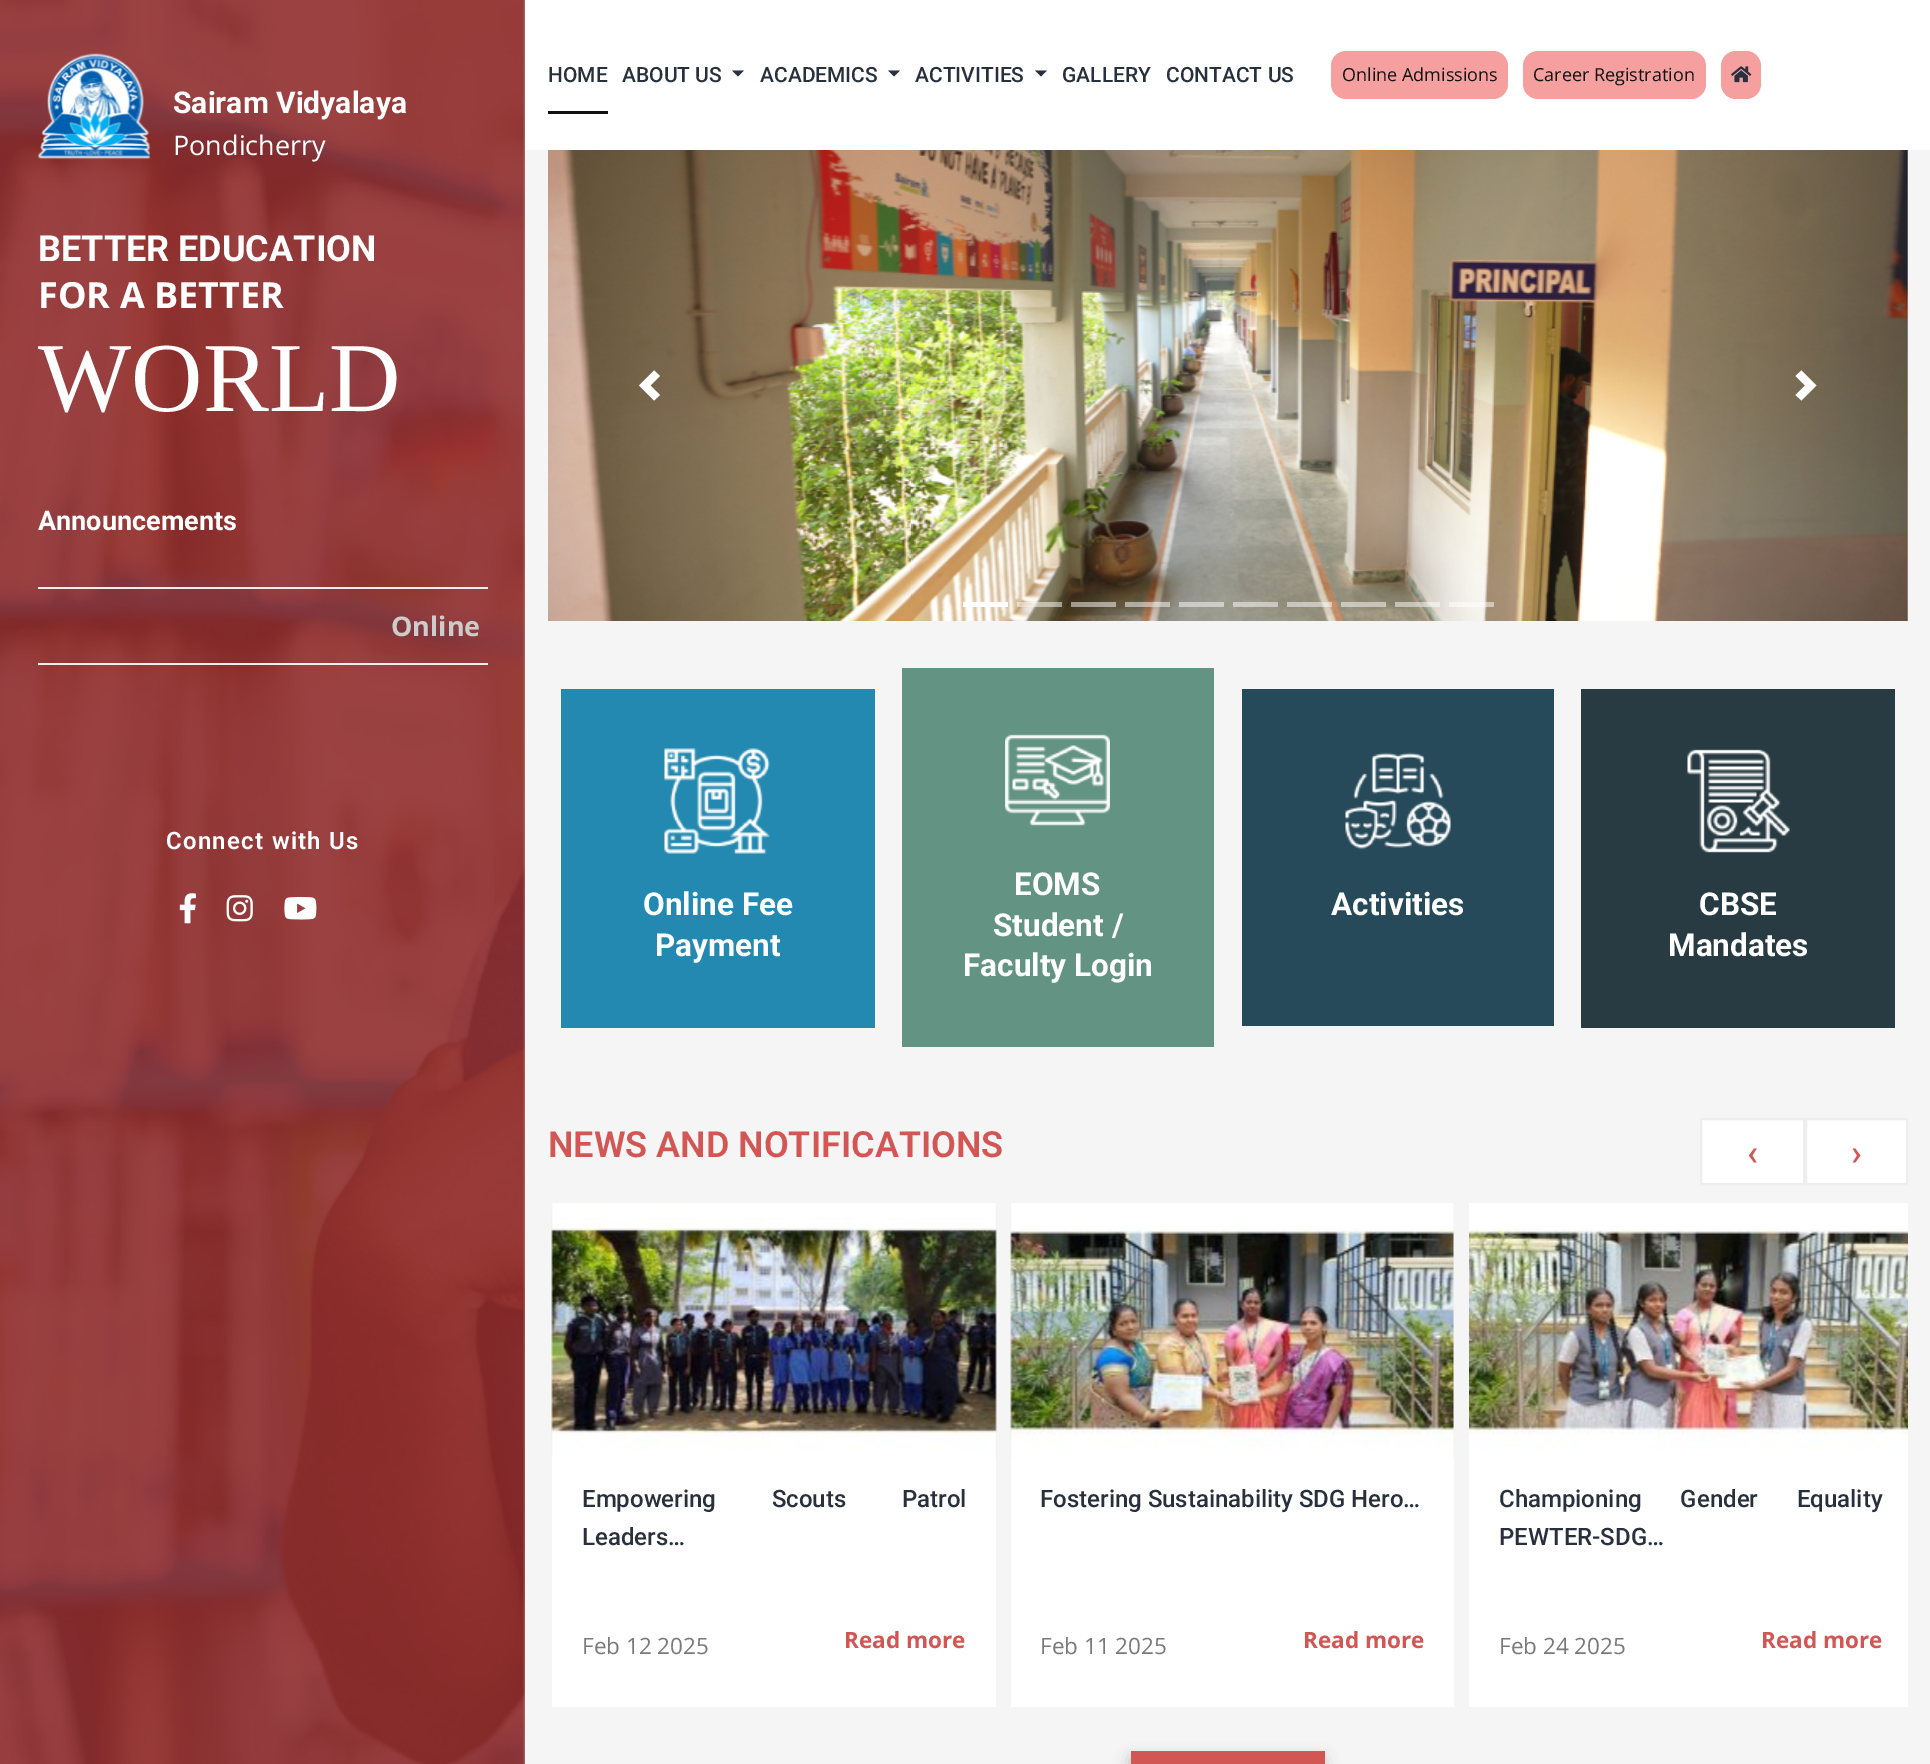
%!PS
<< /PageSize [1930 1764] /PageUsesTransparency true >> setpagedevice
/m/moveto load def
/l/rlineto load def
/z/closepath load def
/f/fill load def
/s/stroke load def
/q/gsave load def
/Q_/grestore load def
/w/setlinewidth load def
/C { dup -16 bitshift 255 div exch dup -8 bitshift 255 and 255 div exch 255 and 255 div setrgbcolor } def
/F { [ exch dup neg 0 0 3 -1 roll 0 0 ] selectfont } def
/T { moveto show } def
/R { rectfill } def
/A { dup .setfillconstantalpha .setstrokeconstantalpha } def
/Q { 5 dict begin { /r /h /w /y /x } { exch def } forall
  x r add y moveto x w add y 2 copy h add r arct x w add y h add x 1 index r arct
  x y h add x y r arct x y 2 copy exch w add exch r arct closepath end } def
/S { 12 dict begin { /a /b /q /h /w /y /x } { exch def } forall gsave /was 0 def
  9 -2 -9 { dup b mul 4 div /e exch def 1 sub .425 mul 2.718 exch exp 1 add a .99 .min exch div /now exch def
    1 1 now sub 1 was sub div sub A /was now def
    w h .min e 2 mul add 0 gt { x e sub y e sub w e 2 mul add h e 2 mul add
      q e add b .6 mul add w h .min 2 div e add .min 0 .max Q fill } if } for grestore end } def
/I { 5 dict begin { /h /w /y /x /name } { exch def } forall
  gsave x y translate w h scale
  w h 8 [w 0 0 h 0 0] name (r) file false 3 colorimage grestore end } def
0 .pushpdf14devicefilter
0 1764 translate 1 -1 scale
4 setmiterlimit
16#FFFFFF C
0 0 1930 1764 R
(1.rgb) 0 0 525 1764 I
(2.rgb) 37 53 113 107 I
/Roboto-Bold 30 F
(Sairam Vidyalaya) 173 113 T
/OpenSans-Regular 27 F
(Pondicherry) 173 155 T
/Roboto-Bold 36 F
(BETTER EDUCATION) 38 261 T
/OpenSans-Bold 36 F
(FOR A BETTER) 38 308 T
/LiberationSerif-Regular 99 F
(WORLD) 38 411 T
/Roboto-Bold 27 F
(Announcements) 38 530 T
16#EEEEEE C
38 587 450 2 R
38 663 450 2 R
/OpenSans-Bold 27 F
16#CCCCCC C
(Online) 391 636 T
/Roboto-SemiBold 24 F
16#FFFFFF C
166 849 m 1.25 0 (Connect with Us) ashow
(3.rgb) 179 893 17 31 I
(4.rgb) 226 895 27 27 I
(5.rgb) 284 897 33 23 I
16#F5F5F5 C
525 150 1405 1614 R
/Roboto-Medium 21 F
16#28303D C
(HOME) 548 82 T
16#111111 C
548 111 60 3 R
16#28303D C
(ABOUT US) 622 82 T
732 70.5 m 12 0 l -6 6 l z f
(ACADEMICS) 760 82 T
888 70.5 m 12 0 l -6 6 l z f
(ACTIVITIES) 915 82 T
1035 70.5 m 12 0 l -6 6 l z f
(GALLERY) 1062 82 T
(CONTACT US) 1166 82 T
16#F69F9F C
1331 51 177 48 15 Q f
/OpenSans-Regular 18 F
16#111111 C
(Online Admissions) 1342 81 T
16#F69F9F C
1523 51 183 48 15 Q f
16#111111 C
(Career Registration) 1533 81 T
16#F69F9F C
1721 51 40 48 15 Q f
(6.rgb) 1731 66 21 17 I
(7.rgb) 548 150 1360 471 I
16#FFFFFF C
654 370.5 m -15 15 l 15 15 l 6 -5.5 l -9.5 -9.5 l 9.5 -9.5 l z f
1801.5 370.5 m -6 5.5 l 9.5 9.5 l -9.5 9.5 l 6 5.5 l 15 -15 l z f
963 602 45 5 R
0.5 A
1017 602 45 5 R
1071 602 45 5 R
1125 602 45 5 R
1179 602 45 5 R
1233 602 45 5 R
1287 602 45 5 R
1341 602 45 5 R
1395 602 45 5 R
1449 602 45 5 R
1 A
16#2489B0 C
561 689 314 339 R
(8.rgb) 664 748 106 106 I
/Roboto-Bold 31.5 F
16#FFFFFF C
(Online Fee) 643 915 T
(Payment) 655 956 T
16#639483 C
902 668 312 379 R
(9.rgb) 1005 734 105 92 I
16#FFFFFF C
(EOMS) 1014 895 T
(Student /) 993 936 T
(Faculty Login) 963 976 T
16#274A5A C
1242 689 312 337 R
(10.rgb) 1345 752 106 98 I
16#FFFFFF C
(Activities) 1331 915 T
16#283B43 C
1581 689 314 339 R
(11.rgb) 1687 749 103 104 I
16#FFFFFF C
(CBSE) 1699 915 T
(Mandates) 1668 956 T
/Roboto-SemiBold 36 F
16#D25754 C
(NEWS AND NOTIFICATIONS) 548 1157 T
16#FFFFFF C
1701 1119 m 103 0 l 0 65 l -103 0 l z q f Q_
16#EEEEEE C
2 w
s
/Roboto-Medium 36 F
16#D25754 C
(‹) 1747 1165 T
16#FFFFFF C
1806 1119 m 101 0 l 0 65 l -101 0 l z q f Q_
16#EEEEEE C
s
16#D25754 C
(›) 1851 1165 T
(12.rgb) 551 1203 446 255 I
16#FFFFFF C
552 1458 444 249 R
/Roboto-Medium 24 F
16#28303D C
582 1507 m 50 0 32 (Empowering Scouts Patrol) widthshow
(Leaders…) 582 1545 T
/OpenSans-Regular 22.5 F
16#7A7878 C
(Feb 12 2025) 582 1654 T
/OpenSans-Bold 22.5 F
16#D25754 C
(Read more) 844 1648 T
(13.rgb) 1010 1203 444 255 I
16#FFFFFF C
1011 1458 443 249 R
/Roboto-Medium 24 F
16#28303D C
(Fostering Sustainability SDG Hero…) 1040 1507 T
/OpenSans-Regular 22.5 F
16#7A7878 C
(Feb 11 2025) 1040 1654 T
/OpenSans-Bold 22.5 F
16#D25754 C
(Read more) 1303 1648 T
(14.rgb) 1469 1203 439 255 I
16#FFFFFF C
1469 1458 439 249 R
/Roboto-Medium 24 F
16#28303D C
1499 1507 m 33 0 32 (Championing Gender Equality) widthshow
(PEWTER-SDG…) 1499 1545 T
/OpenSans-Regular 22.5 F
16#7A7878 C
(Feb 24 2025) 1499 1654 T
/OpenSans-Bold 22.5 F
16#D25754 C
(Read more) 1761 1648 T
16#C0BBBB C
1130 1758 193 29 0 7.5 1 S
16#D25754 C
1131 1751 194 13 R
.poppdf14devicefilter showpage
